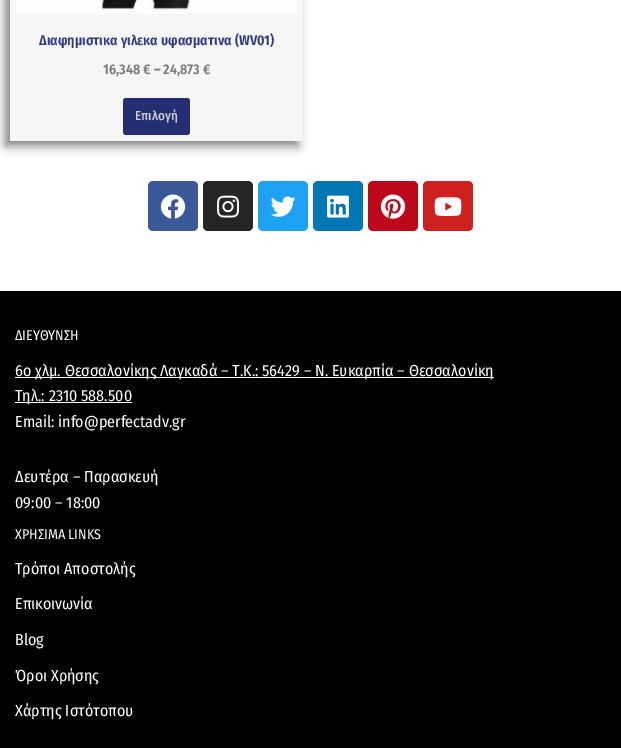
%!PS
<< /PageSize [621 748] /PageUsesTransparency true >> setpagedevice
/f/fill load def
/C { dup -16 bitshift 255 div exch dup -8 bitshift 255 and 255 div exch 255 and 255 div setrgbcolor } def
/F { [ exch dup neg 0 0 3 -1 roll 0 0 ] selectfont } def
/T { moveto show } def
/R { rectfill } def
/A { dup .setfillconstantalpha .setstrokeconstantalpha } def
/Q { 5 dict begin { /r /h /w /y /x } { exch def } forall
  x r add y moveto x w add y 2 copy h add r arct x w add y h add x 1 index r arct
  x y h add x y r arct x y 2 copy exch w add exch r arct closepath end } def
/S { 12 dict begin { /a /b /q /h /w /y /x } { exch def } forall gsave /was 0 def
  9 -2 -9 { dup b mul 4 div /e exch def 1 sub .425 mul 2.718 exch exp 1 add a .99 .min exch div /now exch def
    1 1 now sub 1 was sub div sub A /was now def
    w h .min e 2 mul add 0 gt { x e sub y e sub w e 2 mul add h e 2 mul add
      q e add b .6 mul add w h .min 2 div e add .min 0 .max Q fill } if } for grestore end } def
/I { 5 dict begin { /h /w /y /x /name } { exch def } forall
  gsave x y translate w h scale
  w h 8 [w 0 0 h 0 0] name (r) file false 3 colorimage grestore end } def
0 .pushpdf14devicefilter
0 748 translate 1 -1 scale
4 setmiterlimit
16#FFFFFF C
0 0 621 748 R
16#000000 C
5 -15 293 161 0 5 .5 S
16#F6F6F6 C
10 0 293 141 R
(1.rgb) 16 0 281 14 I
/FiraSansCondensed-SemiBold 14 F
16#2F3980 C
(Διαφημιστικα γιλεκα υφασματινα \(WV01\)) 39 45 T
16#7A7A7A C
(16,348 € – 24,873 €) 103 74 T
16#242F73 C
123 98 67 37 3 Q f
/FiraSansCondensed-Medium 13 F
16#CDCDCD C
(Επιλογή) 135 120 T
16#3B5998 C
148 181 50 50 5 Q f
(2.rgb) 160 194 26 25 I
16#262626 C
203 181 50 50 5 Q f
(3.rgb) 217 195 22 23 I
16#1DA1F2 C
258 181 50 50 5 Q f
(4.rgb) 270 196 26 21 I
16#0077B5 C
313 181 50 50 5 Q f
(5.rgb) 327 195 22 23 I
16#BD081C C
368 181 50 50 5 Q f
(6.rgb) 380 194 26 25 I
16#CD201F C
423 181 50 50 5 Q f
(7.rgb) 434 197 28 19 I
16#000000 C
0 291 621 457 R
/FiraSansCondensed-Regular 14 F
16#FFFFFF C
(ΔΙΕΥΘΥΝΣΗ) 15 340 T
15 377 479 1 R
/FiraSansCondensed-Regular 16 F
(6o χλμ. Θεσσαλονίκης Λαγκαδά – Τ.Κ.: 56429 – Ν. Ευκαρπία – Θεσσαλονίκη) 15 376 T
15 402 117 1 R
(Τηλ.: 2310 588.500) 15 401 T
(Email: info@perfectadv.gr) 15 427 T
(Δευτέρα – Παρασκευή) 15 482 T
(09:00 – 18:00) 15 508 T
/FiraSansCondensed-Regular 14 F
(ΧΡΗΣΙΜΑ LINKS) 15 539 T
/FiraSansCondensed-Regular 16 F
(Τρόποι Αποστολής) 15 574 T
(Επικοινωνία) 15 609 T
(Blog) 15 645 T
(Όροι Χρήσης) 15 681 T
(Χάρτης Ιστότοπου) 15 716 T
.poppdf14devicefilter showpage
